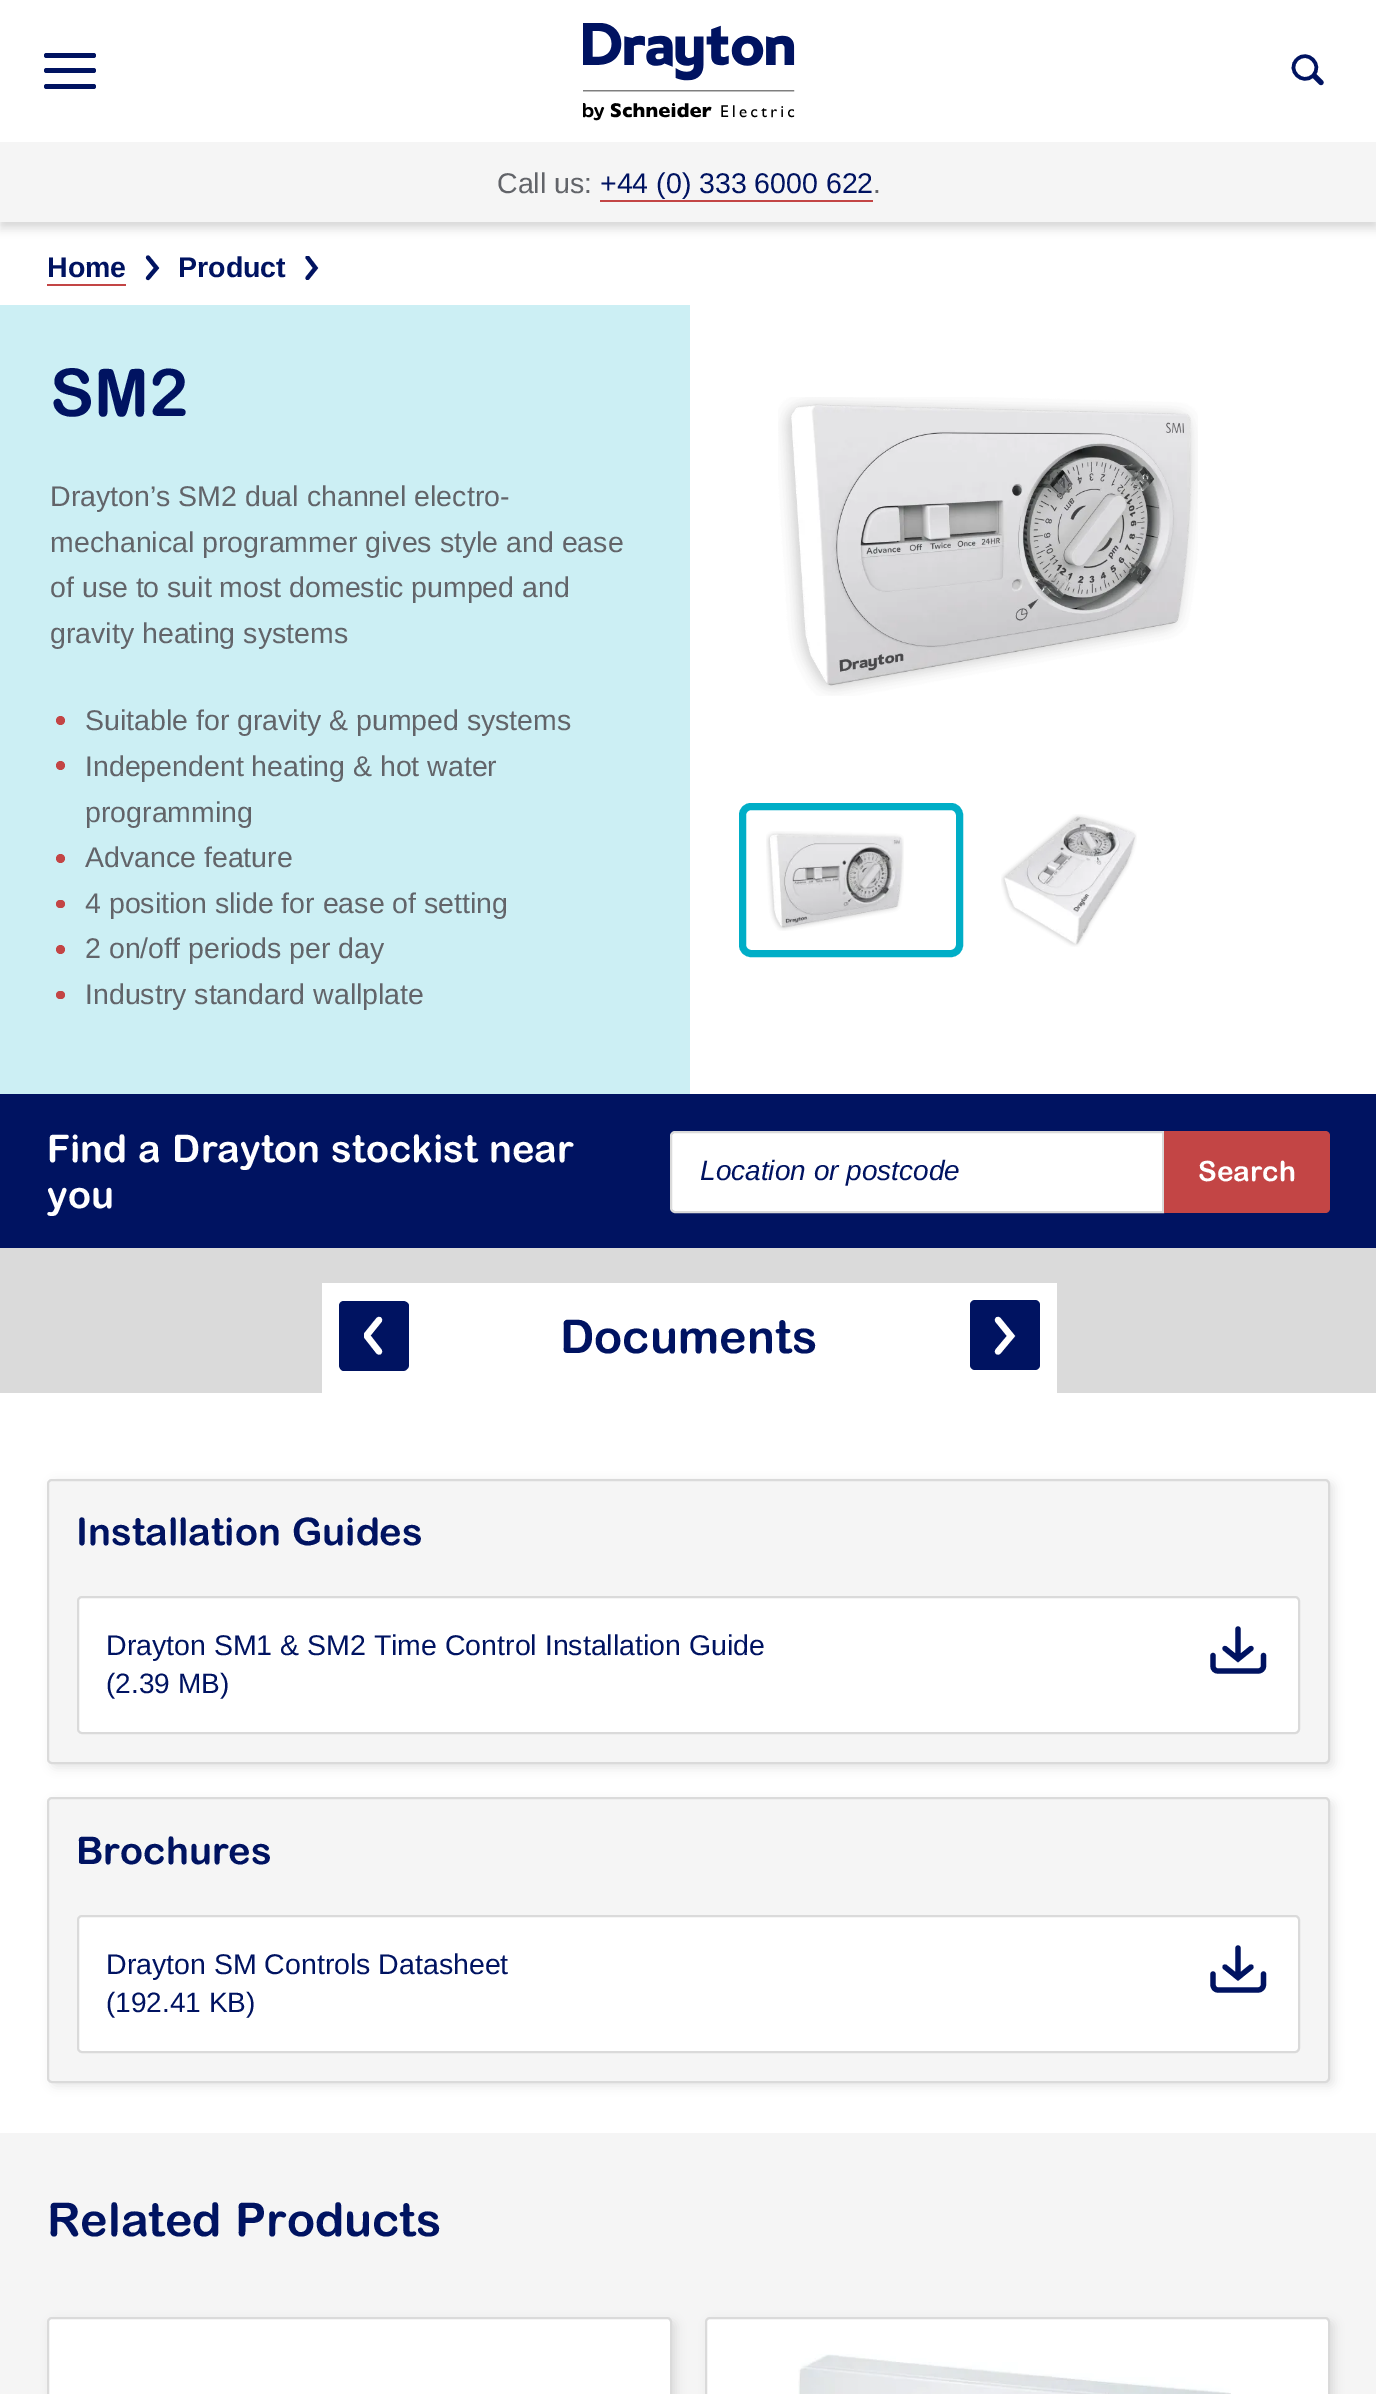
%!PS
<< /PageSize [1376 2394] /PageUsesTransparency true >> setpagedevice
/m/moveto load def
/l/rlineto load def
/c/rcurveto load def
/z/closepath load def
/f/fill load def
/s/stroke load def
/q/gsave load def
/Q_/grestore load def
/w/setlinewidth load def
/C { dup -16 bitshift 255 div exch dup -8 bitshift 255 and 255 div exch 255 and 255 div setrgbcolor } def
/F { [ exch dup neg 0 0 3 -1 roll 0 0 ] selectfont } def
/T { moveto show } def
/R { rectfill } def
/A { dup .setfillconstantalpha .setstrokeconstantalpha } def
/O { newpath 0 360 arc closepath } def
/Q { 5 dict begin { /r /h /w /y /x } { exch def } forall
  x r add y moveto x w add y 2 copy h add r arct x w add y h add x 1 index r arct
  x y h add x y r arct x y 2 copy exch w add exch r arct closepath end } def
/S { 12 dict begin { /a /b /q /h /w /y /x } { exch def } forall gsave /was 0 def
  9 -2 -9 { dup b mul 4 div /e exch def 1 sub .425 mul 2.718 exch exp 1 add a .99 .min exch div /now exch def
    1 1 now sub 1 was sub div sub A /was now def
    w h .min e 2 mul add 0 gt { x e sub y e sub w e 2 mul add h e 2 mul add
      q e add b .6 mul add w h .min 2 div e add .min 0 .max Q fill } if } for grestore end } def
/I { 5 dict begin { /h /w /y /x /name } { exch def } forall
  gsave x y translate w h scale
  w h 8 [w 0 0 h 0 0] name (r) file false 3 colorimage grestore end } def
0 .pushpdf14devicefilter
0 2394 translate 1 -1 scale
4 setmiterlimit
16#F5F5F5 C
0 0 1376 2394 R
16#FFFFFF C
0 222 1376 83 R
16#000000 C
0 4 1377 222 0 2 .05 S
0 9 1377 222 0 3.5 .08 S
16#FFFFFF C
0 0 1376 142 R
16#001361 C
44 68 52 5 2.5 Q f
44 53 52 5 2.5 Q f
44 84 52 5 2.5 Q f
(1.rgb) 583 23 212 98 I
3.5 w
1297 59.5 m 10.5 -10.5 26.5 5.5 16 16 c -10.5 10.5 -27 -5.5 -16 -16 c z s
5.2 w
1 setlinecap
1321 82.5 m -6.5 -6.5 l s
16#F5F5F5 C
0 142 1376 80 R
/LiberationSans-Regular 28.5 F
16#626469 C
(Call us:) 497 193 T
16#001361 C
(+44 \(0\) 333 6000 622) 600 193 T
16#C34545 C
600 200 273 2 R
16#626469 C
(.) 873 193 T
/LiberationSans-Bold 28.5 F
16#001361 C
(Home) 47 277 T
16#C34545 C
47 284 79 2 R
16#001361 C
4.1 w
148 278 m 8.5 -10 l -8.5 -10.5 l s
(Product) 178 277 T
q
305 256 14 24 rectclip
307.5 278 m 8 -10 l -8 -10.5 l s
Q_
16#CCEFF4 C
0 305 690 789 R
/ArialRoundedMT-Bold 66 F
16#001361 C
(SM2) 50 416 T
/LiberationSans-Regular 28.5 F
16#626469 C
(Drayton’s SM2 dual channel electro-) 50 506 T
(mechanical programmer gives style and ease) 50 552 T
(of use to suit most domestic pumped and) 50 597 T
(gravity heating systems) 50 643 T
16#C34545 C
60.5 720.5 4.5 O f
16#626469 C
(Suitable for gravity & pumped systems) 85 730 T
16#C34545 C
60.5 765.5 4.5 O f
16#626469 C
(Independent heating & hot water) 85 776 T
(programming) 85 822 T
16#C34545 C
60.5 858.5 4.5 O f
16#626469 C
(Advance feature) 85 867 T
16#C34545 C
56 900 9 8 4 Q f
16#626469 C
(4 position slide for ease of setting) 85 913 T
16#C34545 C
60.5 949.5 4.5 O f
16#626469 C
(2 on/off periods per day) 85 958 T
16#C34545 C
56 991 9 8 4 Q f
16#626469 C
(Industry standard wallplate) 85 1004 T
16#FFFFFF C
690 305 686 789 R
(2.rgb) 778 397 420 299 I
16#00AEC7 C
7 w
0 setlinecap
742.5 806.5 217 147 8.5 Q s
(3.rgb) 766 831 138 100 I
(4.rgb) 1001 814 136 133 I
16#001361 C
0 1094 1376 154 R
/ArialRoundedMT-Bold 38.1 F
16#FFFFFF C
(Find a Drayton stockist near) 47 1162 T
(you) 47 1208 T
675 1132 m 488 0 l 0 80 l -488 0 l -2 0 -4 -2 -4 -4 c 0 -72 l 0 -2 2 -4 4 -4 c z q f Q_
16#DADADA C
2 w
s
/LiberationSans-Italic 28 F
16#001361 C
(Location or postcode) 700 1180 T
16#C34545 C
1164 1131 m 161 0 l 3 0 5 2 5 5 c 0 72 l 0 3 -2 5 -5 5 c -161 0 l z f
/ArialRoundedMT-Bold 28 F
16#FFFFFF C
(Search) 1198 1181 T
16#DADADA C
0 1248 1376 145 R
16#FFFFFF C
322 1283 735 110 R
16#001361 C
403 1371 m -59 0 l -3 0 -5 -3 -5 -6 c 0 -59 l 0 -3 2 -5 5 -5 c 59 0 l 3 0 6 2 6 5 c 0 59 l 0 3 -3 6 -6 6 c z f
q
364 1316 21 40 rectclip
16#FFFFFF C
6.3 w
1 setlinecap
379 1320 m -12.5 15.5 l 12.5 16 l s
Q_
970 1300 70 70 5 Q f
16#FFFFFF C
6.3 w
1 setlinecap
998 1351.5 m 13 -15.5 l -13 -16 l s
/ArialRoundedMT-Bold 46.5 F
16#001361 C
(Documents) 560 1353 T
16#FFFFFF C
0 1393 1376 740 R
16#000000 C
51 1482 1283 286 5 5 .1 S
16#F5F5F5 C
48 1480 1281 283 4 Q q f Q_
16#DADADA C
2 w
0 setlinecap
s
/ArialRoundedMT-Bold 38.1 F
16#001361 C
(Installation Guides) 76 1545 T
16#FFFFFF C
78 1597 1221 136 4 Q q f Q_
16#DADADA C
s
/LiberationSans-Regular 28.5 F
16#001361 C
(Drayton SM1 & SM2 Time Control Installation Guide) 106 1655 T
/LiberationSans-Regular 28 F
(\(2.39 MB\)) 106 1693 T
5.2 w
1 setlinecap
1225 1648.5 m 13 10.5 l 13 -10.5 l 1238 1629 m 0 28 l 1213 1655.5 m 0 10.5 l 0 3 2 5 5 5 c 40 0 l 3 0 5.5 -2 5.5 -5 c 0 -10.5 l s
16#000000 C
51 1801 1283 285 5 5 .1 S
16#F5F5F5 C
48 1798 1281 284 4 Q q f Q_
16#DADADA C
2 w
0 setlinecap
s
/ArialRoundedMT-Bold 38.1 F
16#001361 C
(Brochures) 76 1864 T
16#FFFFFF C
78 1916 1221 136 4 Q q f Q_
16#DADADA C
s
/LiberationSans-Regular 28.5 F
16#001361 C
(Drayton SM Controls Datasheet) 106 1974 T
/LiberationSans-Regular 28 F
(\(192.41 KB\)) 106 2012 T
5.2 w
1 setlinecap
1225 1967 m 13 10.5 l 13 -10.5 l 1238 1948 m 0 28 l 1213 1974 m 0 10.5 l 0 3 2 5.5 5 5.5 c 40 0 l 3 0 5.5 -2.5 5.5 -5.5 c 0 -10.5 l s
/ArialRoundedMT-Bold 46.5 F
(Related Products) 47 2236 T
16#000000 C
51 2321 625 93 5 5 .1 S
16#FFFFFF C
48 2318 623 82 4 Q q f Q_
16#DADADA C
2 w
0 setlinecap
s
16#000000 C
709 2321 625 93 5 5 .1 S
16#FFFFFF C
706 2318 623 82 4 Q q f Q_
16#DADADA C
s
(5.rgb) 798 2354 433 40 I
.poppdf14devicefilter showpage
